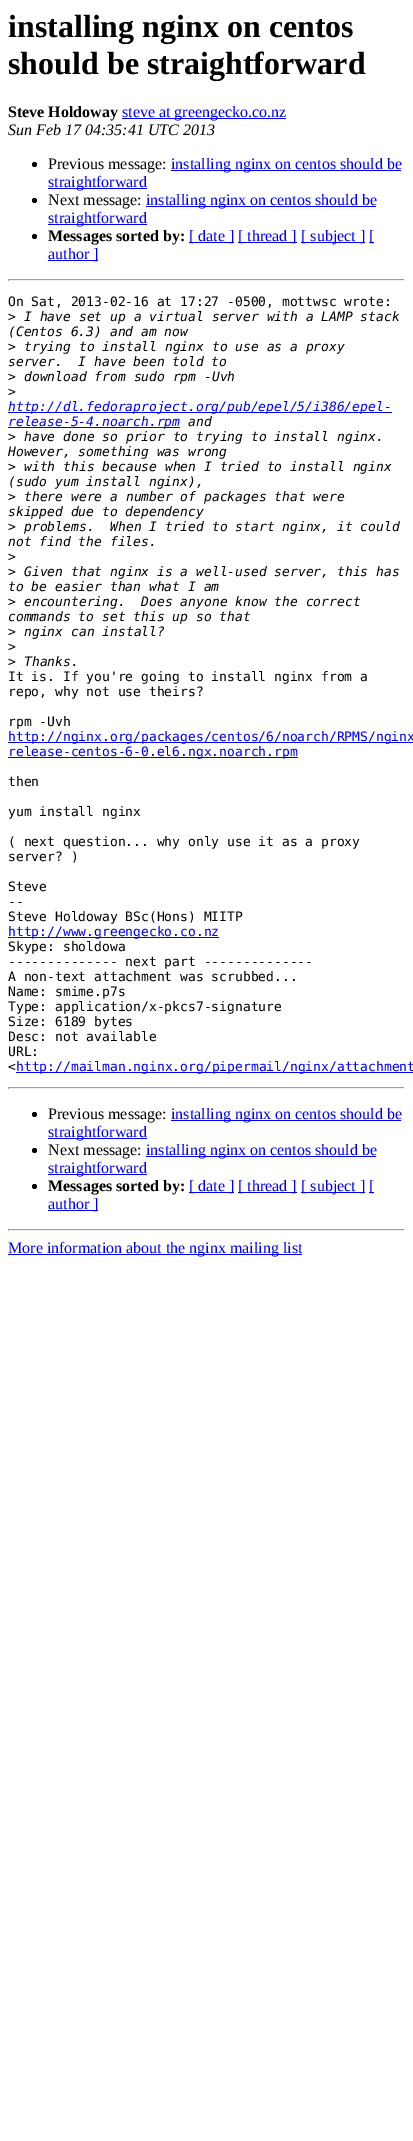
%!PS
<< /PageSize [413 2141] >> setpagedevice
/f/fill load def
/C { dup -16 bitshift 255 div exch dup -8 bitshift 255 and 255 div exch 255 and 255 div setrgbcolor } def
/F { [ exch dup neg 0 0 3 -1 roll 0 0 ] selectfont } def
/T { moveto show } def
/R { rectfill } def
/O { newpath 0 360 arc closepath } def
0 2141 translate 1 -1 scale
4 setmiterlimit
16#FFFFFF C
0 0 413 2141 R
/LiberationSerif-Bold 32 F
16#000000 C
(installing nginx on centos) 8 37 T
(should be straightforward) 8 74 T
/LiberationSerif-Bold 16 F
(Steve Holdoway) 8 117 T
16#0000EE C
122 118 164 1 R
/LiberationSerif-Regular 16 F
(steve at greengecko.co.nz) 122 117 T
/LiberationSerif-Italic 16 F
16#000000 C
(Sun Feb 17 04:35:41 UTC 2013) 8 135 T
34.5 164.5 2.5 O f
/LiberationSerif-Regular 16 F
(Previous message:) 48 169 T
16#0000EE C
171 170 230 1 R
(installing nginx on centos should be) 171 169 T
48 188 99 1 R
(straightforward) 48 187 T
16#000000 C
34.5 200.5 2.5 O f
(Next message:) 48 205 T
16#0000EE C
146 206 230 1 R
(installing nginx on centos should be) 146 205 T
48 224 99 1 R
(straightforward) 48 223 T
16#000000 C
34.5 236.5 2.5 O f
/LiberationSerif-Bold 16 F
(Messages sorted by:) 48 241 T
16#0000EE C
189 242 45 1 R
/LiberationSerif-Regular 16 F
([ date ]) 189 241 T
238 242 59 1 R
([ thread ]) 238 241 T
301 242 64 1 R
([ subject ]) 301 241 T
369 242 5 1 R
([) 369 241 T
48 260 50 1 R
(author ]) 48 259 T
16#9F9F9F C
8 279 397 1 R
16#EEEEEE C
404 279 1 2 R
8 280 397 1 R
16#9F9F9F C
8 279 1 2 R
/DejaVuSansMono-Regular 13 F
16#000000 C
(On Sat, 2013-02-16 at 17:27 -0500, mottwsc wrote:) 8 306 T
(>) 8 321 T
/DejaVuSansMono-Italic 13 F
(I have set up a virtual server with a LAMP stack) 24 321 T
(\(Centos 6.3\) and am now) 8 336 T
/DejaVuSansMono-Regular 13 F
(>) 8 351 T
/DejaVuSansMono-Italic 13 F
(trying to install nginx to use as a proxy) 24 351 T
(server.  I have been told to) 8 366 T
/DejaVuSansMono-Regular 13 F
(>) 8 381 T
/DejaVuSansMono-Italic 13 F
(download from sudo rpm -Uvh) 24 381 T
/DejaVuSansMono-Regular 13 F
(>) 8 396 T
16#0000EE C
8 412 384 1 R
/DejaVuSansMono-Italic 13 F
(http://dl.fedoraproject.org/pub/epel/5/i386/epel-) 8 411 T
8 427 172 1 R
(release-5-4.noarch.rpm) 8 426 T
16#000000 C
(and) 188 426 T
/DejaVuSansMono-Regular 13 F
(>) 8 441 T
/DejaVuSansMono-Italic 13 F
(have done so prior to trying to install nginx.) 24 441 T
(However, something was wrong) 8 456 T
/DejaVuSansMono-Regular 13 F
(>) 8 471 T
/DejaVuSansMono-Italic 13 F
(with this because when I tried to install nginx) 24 471 T
(\(sudo yum install nginx\),) 8 486 T
/DejaVuSansMono-Regular 13 F
(>) 8 501 T
/DejaVuSansMono-Italic 13 F
(there were a number of packages that were) 24 501 T
(skipped due to dependency) 8 516 T
/DejaVuSansMono-Regular 13 F
(>) 8 531 T
/DejaVuSansMono-Italic 13 F
(problems.  When I tried to start nginx, it could) 24 531 T
(not find the files.) 8 546 T
/DejaVuSansMono-Regular 13 F
(>) 8 561 T
(>) 8 576 T
/DejaVuSansMono-Italic 13 F
(Given that nginx is a well-used server, this has) 24 576 T
(to be easier than what I am) 8 591 T
/DejaVuSansMono-Regular 13 F
(>) 8 606 T
/DejaVuSansMono-Italic 13 F
(encountering.  Does anyone know the correct) 24 606 T
(commands to set this up so that) 8 621 T
/DejaVuSansMono-Regular 13 F
(>) 8 636 T
/DejaVuSansMono-Italic 13 F
(nginx can install?) 24 636 T
/DejaVuSansMono-Regular 13 F
(>) 8 651 T
(>) 8 666 T
/DejaVuSansMono-Italic 13 F
(Thanks.) 24 666 T
/DejaVuSansMono-Regular 13 F
(It is. If you're going to install nginx from a) 8 681 T
(repo, why not use theirs?) 8 696 T
(rpm -Uvh) 8 726 T
16#0000EE C
8 742 405 1 R
(http://nginx.org/packages/centos/6/noarch/RPMS/nginx) 8 741 T
8 757 290 1 R
(release-centos-6-0.el6.ngx.noarch.rpm) 8 756 T
16#000000 C
(then) 8 786 T
(yum install nginx) 8 816 T
(\( next question... why only use it as a proxy) 8 846 T
(server? \)) 8 861 T
(Steve) 8 891 T
(--) 8 906 T
(Steve Holdoway BSc\(Hons\) MIITP) 8 921 T
16#0000EE C
8 937 211 1 R
(http://www.greengecko.co.nz) 8 936 T
16#000000 C
(Skype: sholdowa) 8 951 T
(-------------- next part --------------) 8 966 T
(A non-text attachment was scrubbed...) 8 981 T
(Name: smime.p7s) 8 996 T
(Type: application/x-pkcs7-signature) 8 1011 T
(Size: 6189 bytes) 8 1026 T
(Desc: not available) 8 1041 T
(URL:) 8 1056 T
(<) 8 1071 T
16#0000EE C
16 1072 397 1 R
(http://mailman.nginx.org/pipermail/nginx/attachment) 16 1071 T
16#9F9F9F C
8 1087 397 1 R
16#EEEEEE C
404 1087 1 2 R
8 1088 397 1 R
16#9F9F9F C
8 1087 1 2 R
16#000000 C
34.5 1114.5 2.5 O f
/LiberationSerif-Regular 16 F
(Previous message:) 48 1119 T
16#0000EE C
171 1120 230 1 R
(installing nginx on centos should be) 171 1119 T
48 1138 99 1 R
(straightforward) 48 1137 T
16#000000 C
34.5 1150.5 2.5 O f
(Next message:) 48 1155 T
16#0000EE C
146 1156 230 1 R
(installing nginx on centos should be) 146 1155 T
48 1174 99 1 R
(straightforward) 48 1173 T
16#000000 C
34.5 1186.5 2.5 O f
/LiberationSerif-Bold 16 F
(Messages sorted by:) 48 1191 T
16#0000EE C
189 1192 45 1 R
/LiberationSerif-Regular 16 F
([ date ]) 189 1191 T
238 1192 59 1 R
([ thread ]) 238 1191 T
301 1192 64 1 R
([ subject ]) 301 1191 T
369 1192 5 1 R
([) 369 1191 T
48 1210 50 1 R
(author ]) 48 1209 T
16#9F9F9F C
8 1229 397 1 R
16#EEEEEE C
404 1229 1 2 R
8 1230 397 1 R
16#9F9F9F C
8 1229 1 2 R
16#0000EE C
8 1254 294 1 R
(More information about the nginx mailing list) 8 1253 T
showpage
